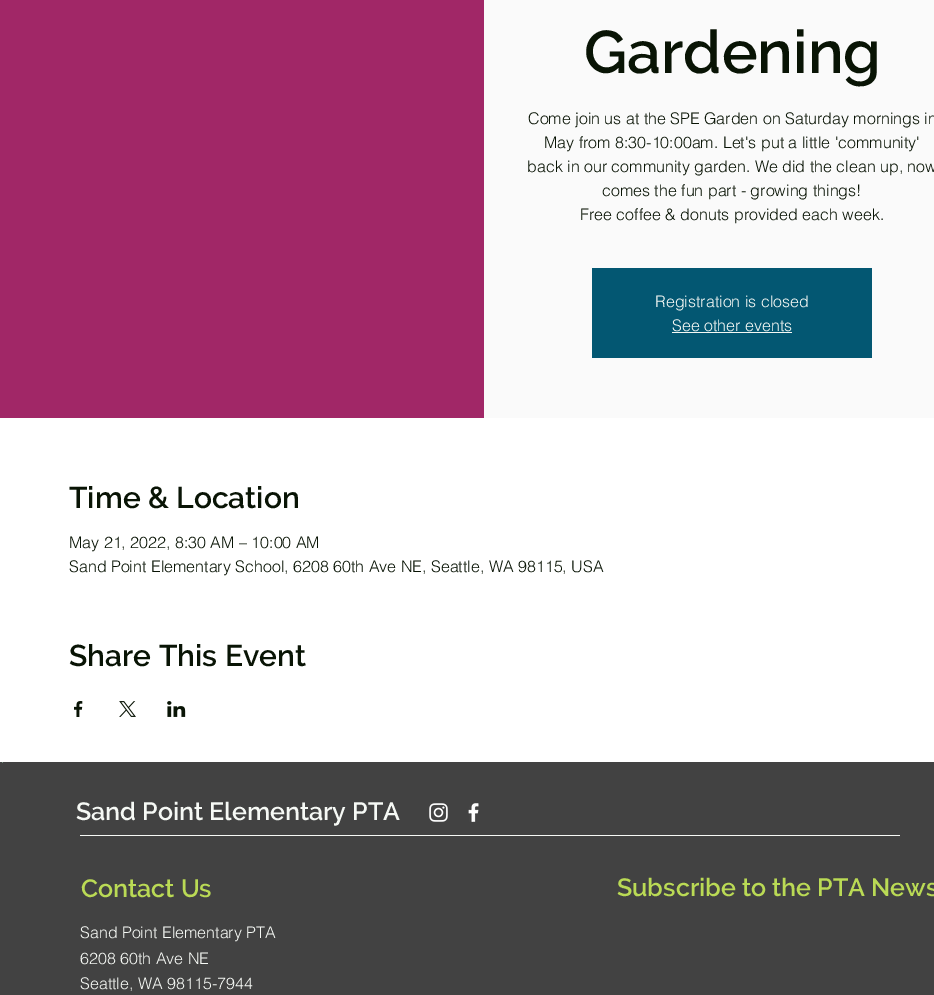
%!PS
<< /PageSize [934 995] >> setpagedevice
/C { dup -16 bitshift 255 div exch dup -8 bitshift 255 and 255 div exch 255 and 255 div setrgbcolor } def
/F { [ exch dup neg 0 0 3 -1 roll 0 0 ] selectfont } def
/T { moveto show } def
/R { rectfill } def
/I { 5 dict begin { /h /w /y /x /name } { exch def } forall
  gsave x y translate w h scale
  w h 8 [w 0 0 h 0 0] name (r) file false 3 colorimage grestore end } def
0 995 translate 1 -1 scale
4 setmiterlimit
16#FFFFFF C
0 0 934 995 R
16#A12767 C
0 0 484 418 R
16#FAFAFA C
484 0 450 418 R
/Raleway-SemiBold 60 F
16#091405 C
(Gardening) 584 73 T
/helvetica-Light 16 F
(Come join us at the SPE Garden on Saturday mornings in) 528 124 T
(May from 8:30-10:00am. Let's put a little 'community') 544 148 T
(back in our community garden. We did the clean up, now) 527 172 T
(comes the fun part - growing things!) 602 196 T
(Free coffee & donuts provided each week.) 580 220 T
16#035772 C
592 268 280 90 R
16#F6F9F5 C
(Registration is closed) 655 307 T
(See other events) 672 331 T
672 332 120 1 R
/Raleway-SemiBold 30 F
16#091405 C
(Time & Location) 69 508 T
/helvetica-Light 16 F
(May 21, 2022, 8:30 AM – 10:00 AM) 69 548 T
(Sand Point Elementary School, 6208 60th Ave NE, Seattle, WA 98115, USA) 69 572 T
/Raleway-SemiBold 30 F
(Share This Event) 69 666 T
(1.rgb) 74 701 9 16 I
(2.rgb) 119 701 17 16 I
(3.rgb) 167 701 19 16 I
16#424242 C
0 762 934 233 R
16#75917D C
2 762 1 1 R
/Raleway-SemiBold 25 F
16#F6F9F5 C
(Sand Point Elementary PTA) 76 820 T
(4.rgb) 429 803 19 19 I
(5.rgb) 468 803 11 19 I
80 835 820 1 R
16#BADA55 C
(Contact Us) 81 897 T
(Subscribe to the PTA News) 617 896 T
/helvetica-Light 16 F
16#F6F9F5 C
(Sand Point Elementary PTA) 80 938 T
(6208 60th Ave NE) 80 964 T
(Seattle, WA 98115-7944) 80 989 T
showpage
